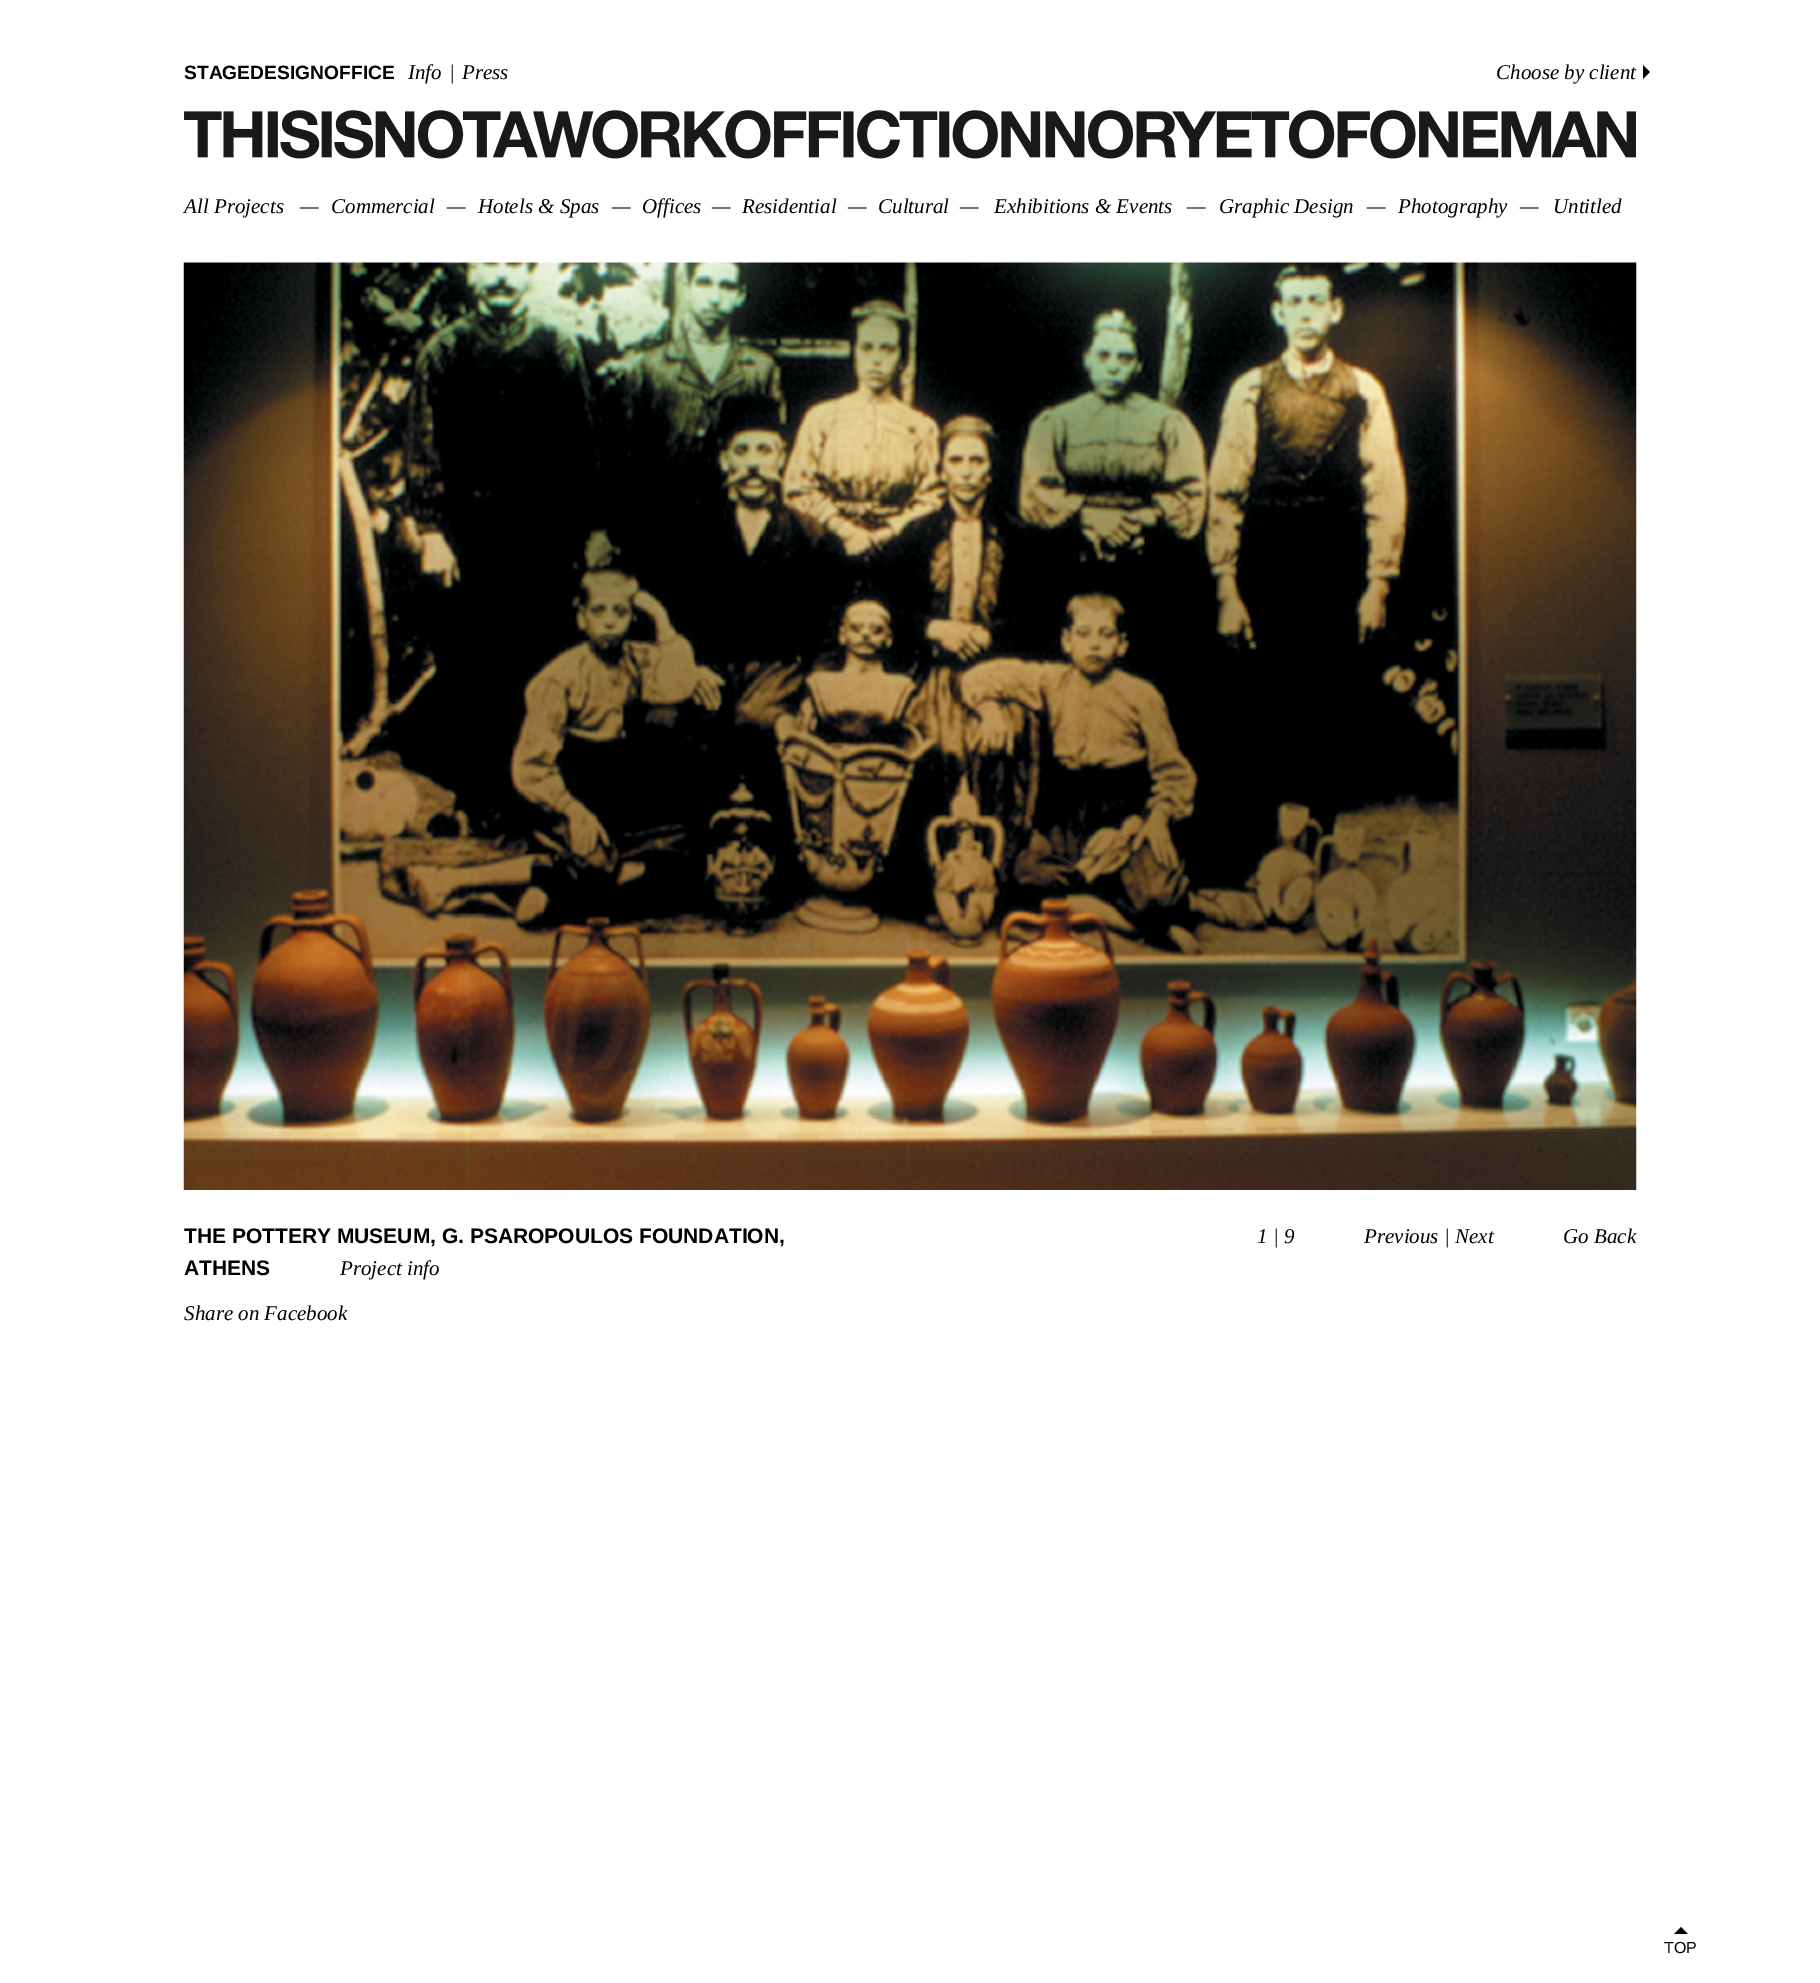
%!PS
<< /PageSize [1820 1983] >> setpagedevice
/m/moveto load def
/l/rlineto load def
/z/closepath load def
/f/fill load def
/C { dup -16 bitshift 255 div exch dup -8 bitshift 255 and 255 div exch 255 and 255 div setrgbcolor } def
/F { [ exch dup neg 0 0 3 -1 roll 0 0 ] selectfont } def
/T { moveto show } def
/R { rectfill } def
/I { 5 dict begin { /h /w /y /x /name } { exch def } forall
  gsave x y translate w h scale
  w h 8 [w 0 0 h 0 0] name (r) file false 3 colorimage grestore end } def
0 1983 translate 1 -1 scale
4 setmiterlimit
16#FFFFFF C
0 0 1820 1983 R
/LiberationSans-Bold 19.25 F
16#000000 C
(STAGEDESIGNOFFICE) 184 79 T
/LiberationSerif-Italic 21 F
(Info) 408 79 T
(|) 449 79 T
(Press) 462 79 T
(Choose by client) 1496 79 T
1643 79 m 0 -14 l 7 7 l z f
(1.rgb) 184 110 1452 49 I
(All Projects) 184 213 T
(—) 300 213 T
(Commercial) 331 213 T
(—) 447 213 T
(Hotels & Spas) 478 213 T
(—) 612 213 T
(Offices) 642 213 T
(—) 712 213 T
(Residential) 742 213 T
(—) 848 213 T
(Cultural) 878 213 T
(—) 960 213 T
(Exhibitions & Events) 994 213 T
(—) 1187 213 T
(Graphic Design) 1219 213 T
(—) 1367 213 T
(Photography) 1398 213 T
(—) 1520 213 T
(Untitled) 1553 213 T
(2.rgb) 183 262 1454 928 I
/LiberationSans-Bold 21 F
(THE POTTERY MUSEUM, G. PSAROPOULOS FOUNDATION,) 184 1243 T
(ATHENS) 184 1275 T
/LiberationSerif-Italic 21 F
(Project info) 340 1275 T
(1 | 9) 1257 1243 T
(Previous | Next) 1364 1243 T
(Go Back) 1563 1243 T
(Share on Facebook) 184 1320 T
1688 1934 m -14 0 l 7 -7 l z f
/LiberationSans-Regular 16 F
(TOP) 1664 1953 T
showpage
